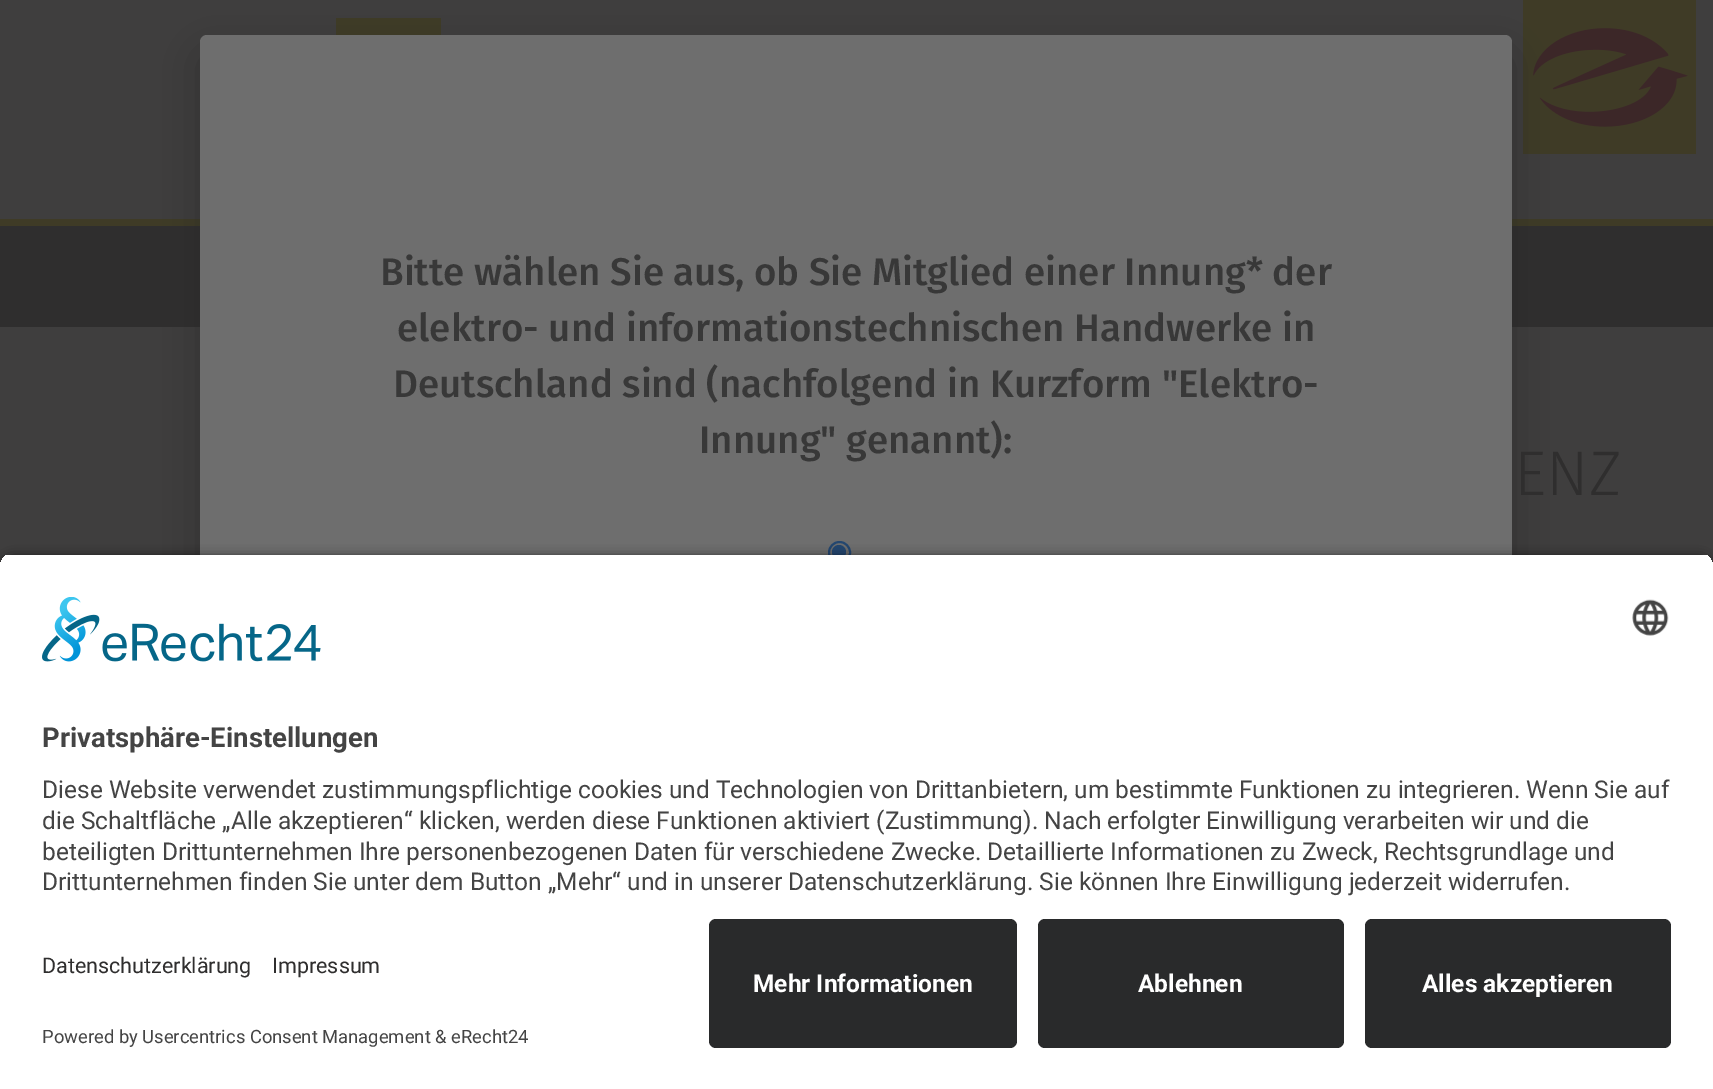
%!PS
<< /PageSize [1713 1089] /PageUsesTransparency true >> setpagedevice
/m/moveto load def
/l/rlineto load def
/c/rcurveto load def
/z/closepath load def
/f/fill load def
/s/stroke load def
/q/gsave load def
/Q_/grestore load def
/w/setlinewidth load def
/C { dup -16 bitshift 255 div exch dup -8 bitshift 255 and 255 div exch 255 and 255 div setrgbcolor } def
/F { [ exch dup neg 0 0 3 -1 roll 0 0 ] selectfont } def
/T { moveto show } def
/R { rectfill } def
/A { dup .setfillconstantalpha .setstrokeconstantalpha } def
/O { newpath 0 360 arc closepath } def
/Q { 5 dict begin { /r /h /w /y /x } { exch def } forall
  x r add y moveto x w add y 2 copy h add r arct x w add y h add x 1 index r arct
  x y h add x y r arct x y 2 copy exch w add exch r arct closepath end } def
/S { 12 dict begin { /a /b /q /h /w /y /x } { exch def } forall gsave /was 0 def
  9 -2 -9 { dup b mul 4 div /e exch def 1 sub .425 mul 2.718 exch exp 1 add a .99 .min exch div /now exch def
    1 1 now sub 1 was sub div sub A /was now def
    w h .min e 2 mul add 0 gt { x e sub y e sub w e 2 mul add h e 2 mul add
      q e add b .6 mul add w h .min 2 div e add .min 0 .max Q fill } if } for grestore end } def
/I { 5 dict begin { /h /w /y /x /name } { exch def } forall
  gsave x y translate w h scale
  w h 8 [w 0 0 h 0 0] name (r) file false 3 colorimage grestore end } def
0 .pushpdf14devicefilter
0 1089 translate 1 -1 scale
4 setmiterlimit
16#3F3E3E C
0 0 1713 1089 R
16#3F3B26 C
336 18 105 17 R
(1.rgb) 1523 0 173 154 I
16#2F2E2E C
0 226 1713 101 R
16#3F3B26 C
0 219 1713 7 R
(2.rgb) 35 436 165 119 I
16#242424 C
200 53 1312 1020 7 22 .5 S
16#6E6E6E C
200 35 1312 1020 7 Q f
/FiraSans-Medium 38.5 F
16#383838 C
(Bitte wählen Sie aus, ob Sie Mitglied einer Innung* der) 380 285 T
(elektro- und informationstechnischen Handwerke in) 397 341 T
(Deutschland sind \(nachfolgend in Kurzform "Elektro-) 393 397 T
(Innung" genannt\):) 699 453 T
16#244770 C
2 w
839.5 552.5 10.5 O s
839 552 7 O f
/FiraSans-Light 63 F
16#2F2E2E C
(ENZ) 1514 495 T
16#000000 C
0 558 1713 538 14 6 .8 S
q
14 553 m 1685 0 l 7.5 0 14 6.5 14 14 c 0 338 l -1713 0 l 0 -338 l 0 -7.5 6.5 -14 14 -14 c z clip newpath
16#FFFFFF C
0 555 1713 350 R
Q_
(3.rgb) 42 597 279 65 I
(4.rgb) 1632 599 37 37 I
/Roboto-Bold 27.5 F
16#444444 C
(Privatsphäre-Einstellungen) 42 747 T
/Roboto-Regular 24.5 F
(Diese Website verwendet zustimmungspflichtige cookies und Technologien von Drittanbietern, um bestimmte Funktionen zu integrieren. Wenn Sie auf) 42 798 T
(die Schaltfläche „Alle akzeptieren“ klicken, werden diese Funktionen aktiviert \(Zustimmung\). Nach erfolgter Einwilligung verarbeiten wir und die) 42 829 T
(beteiligten Drittunternehmen Ihre personenbezogenen Daten für verschiedene Zwecke. Detaillierte Informationen zu Zweck, Rechtsgrundlage und) 42 860 T
(Drittunternehmen finden Sie unter dem Button „Mehr“ und in unserer Datenschutzerklärung. Sie können Ihre Einwilligung jederzeit widerrufen.) 42 890 T
16#FFFFFF C
0 905 1713 184 R
/Roboto-Regular 21.5 F
16#2F2E2E C
(Datenschutzerklärung) 42 973 T
(Impressum) 272 973 T
/Roboto-Regular 18.4 F
16#444444 C
(Powered by Usercentrics Consent Management & eRecht24) 42 1043 T
16#292A2B C
709 919 308 129 7 Q f
/Roboto-Bold 24.5 F
16#FFFFFF C
(Mehr Informationen) 753 992 T
16#292A2B C
1038 919 306 129 7 Q f
16#FFFFFF C
(Ablehnen) 1138 992 T
16#292A2B C
1365 919 306 129 7 Q f
16#FFFFFF C
(Alles akzeptieren) 1422 992 T
.poppdf14devicefilter showpage
